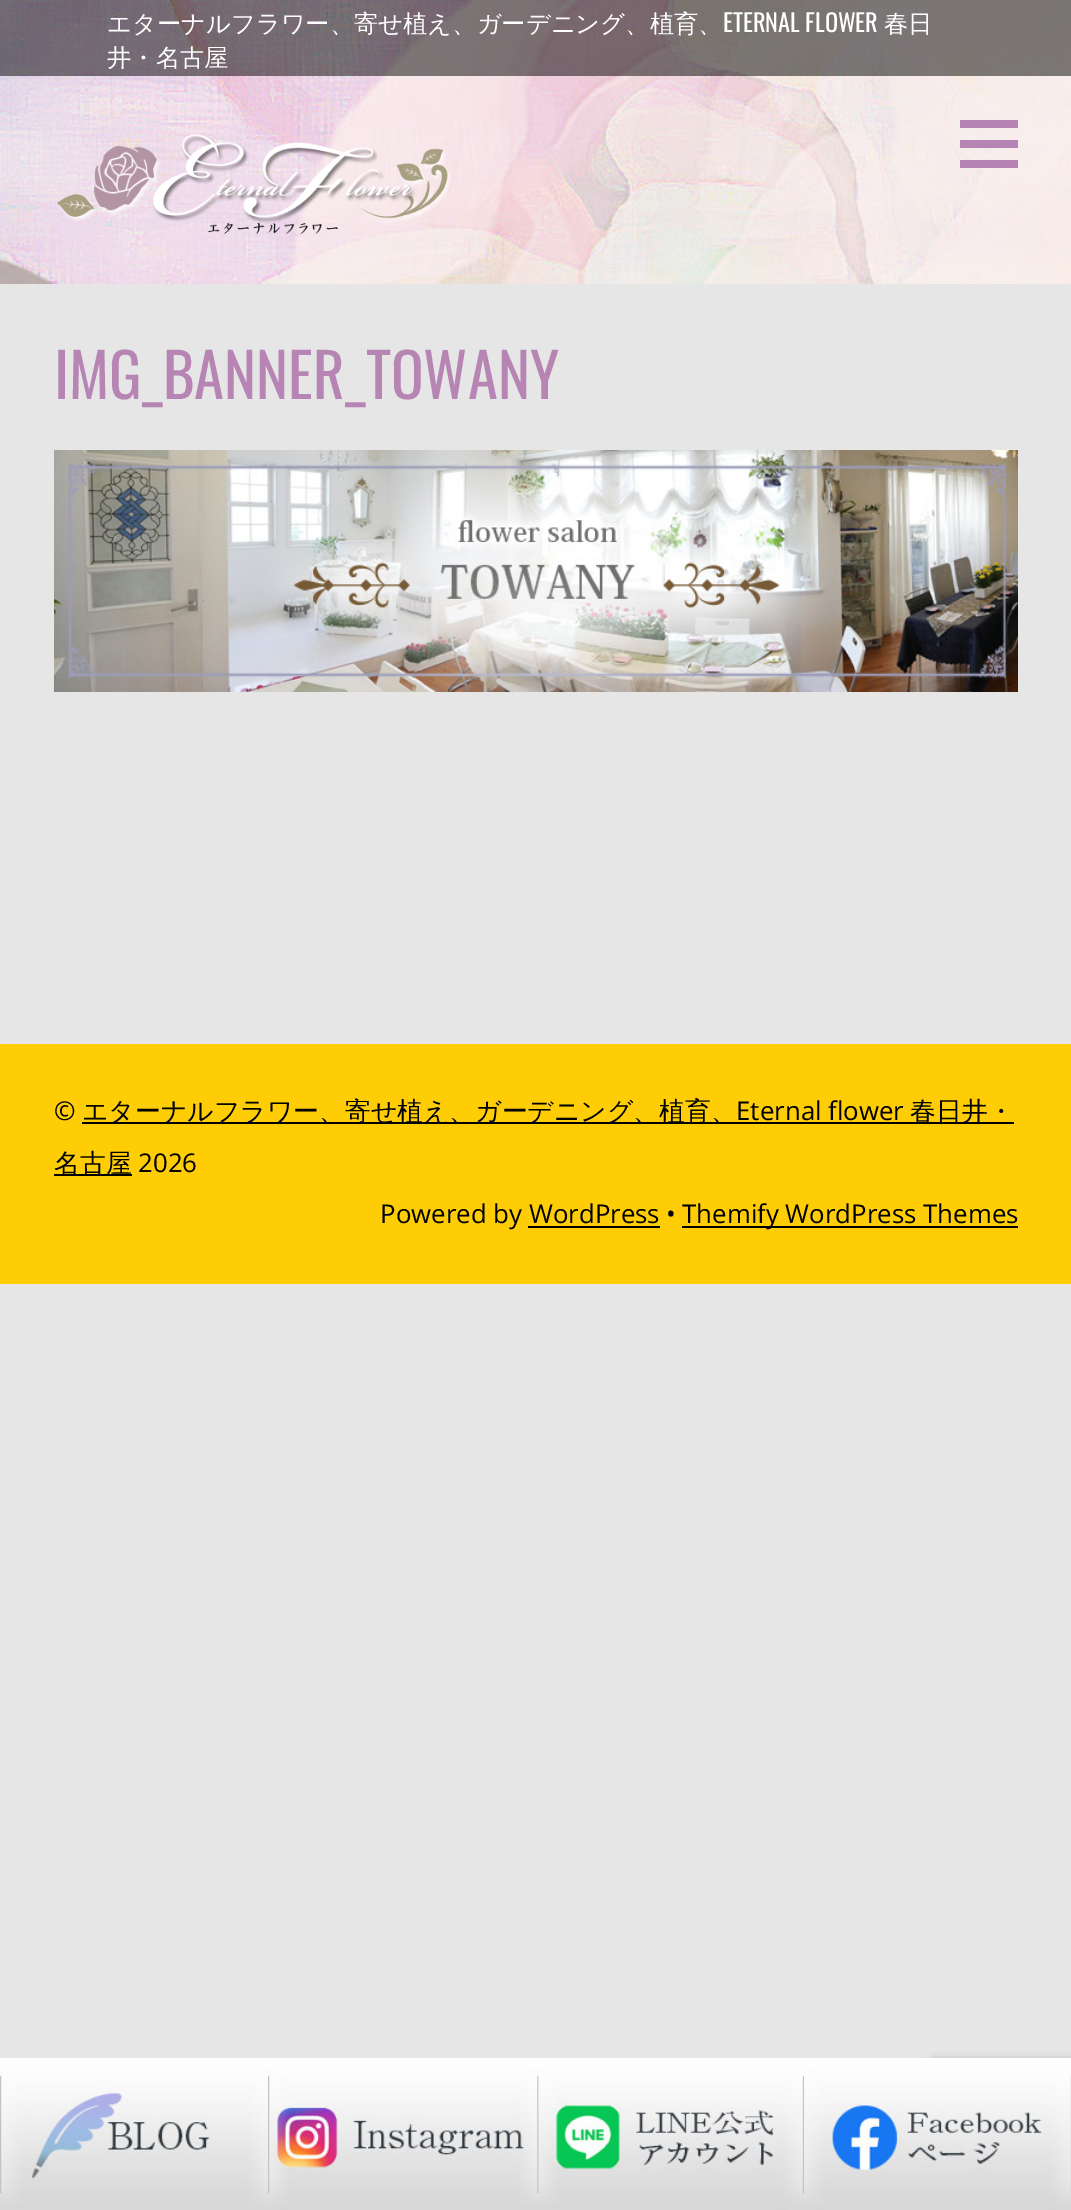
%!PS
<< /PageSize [1071 2210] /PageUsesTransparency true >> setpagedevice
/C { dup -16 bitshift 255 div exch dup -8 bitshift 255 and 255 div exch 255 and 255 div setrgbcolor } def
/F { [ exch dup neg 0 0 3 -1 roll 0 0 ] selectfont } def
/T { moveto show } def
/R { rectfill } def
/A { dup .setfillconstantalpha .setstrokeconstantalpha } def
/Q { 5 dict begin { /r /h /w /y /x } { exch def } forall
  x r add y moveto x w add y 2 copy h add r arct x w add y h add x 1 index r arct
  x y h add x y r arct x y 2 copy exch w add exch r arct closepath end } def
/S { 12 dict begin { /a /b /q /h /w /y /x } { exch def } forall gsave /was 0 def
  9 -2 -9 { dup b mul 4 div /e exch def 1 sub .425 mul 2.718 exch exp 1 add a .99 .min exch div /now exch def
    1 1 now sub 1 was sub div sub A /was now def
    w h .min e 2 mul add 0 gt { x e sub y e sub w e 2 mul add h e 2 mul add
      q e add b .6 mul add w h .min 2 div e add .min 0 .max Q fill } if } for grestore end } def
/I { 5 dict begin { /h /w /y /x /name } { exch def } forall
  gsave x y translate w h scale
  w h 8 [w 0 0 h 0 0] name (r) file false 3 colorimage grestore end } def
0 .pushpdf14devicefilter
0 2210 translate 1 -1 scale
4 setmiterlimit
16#E6E6E6 C
0 0 1071 2210 R
(1.rgb) 0 0 1071 284 I
0.5 A
16#000000 C
0 0 1071 76 R
/WenQuanYiZenHei-Medium 24.3 F
1 A
16#FFFFFF C
(エターナルフラワー、寄せ植え、ガーデニング、植育、) 107 32 T
/Oswald-Regular 24.3 F
(ETERNAL FLOWER) 723 32 T
/WenQuanYiZenHei-Medium 24.3 F
(春日) 884 32 T
(井・名古屋) 107 66 T
(2.rgb) 57 134 394 101 I
16#B685B4 C
960 120 58 8 R
960 160 58 8 R
960 140 58 8 R
/Oswald-Regular 60.75 F
(IMG_BANNER_TOWANY) 54 399 T
(3.rgb) 54 450 964 242 I
16#FECD06 C
0 1044 1071 240 R
/OpenSans-Regular 25.85 F
16#000000 C
(©) 54 1120 T
82 1122 932 2 R
/WenQuanYiZenHei-Medium 25.85 F
(エターナルフラワー、寄せ植え、ガーデニング、植育、) 82 1120 T
/OpenSans-Regular 25.85 F
(Eternal flower) 736 1120 T
/WenQuanYiZenHei-Medium 25.85 F
(春日井・) 910 1120 T
54 1174 78 2 R
(名古屋) 54 1172 T
/OpenSans-Regular 25.85 F
(2026) 138 1172 T
(Powered by WordPress •) 380 1223 T
682 1226 336 2 R
(Themify WordPress Themes) 682 1223 T
528 1226 132 2 R
16#808080 C
932 2062 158 120 4 5 1 S
(4.rgb) 0 2058 268 152 I
(5.rgb) 268 2058 268 152 I
(6.rgb) 536 2058 268 152 I
(7.rgb) 804 2058 267 152 I
.poppdf14devicefilter showpage
